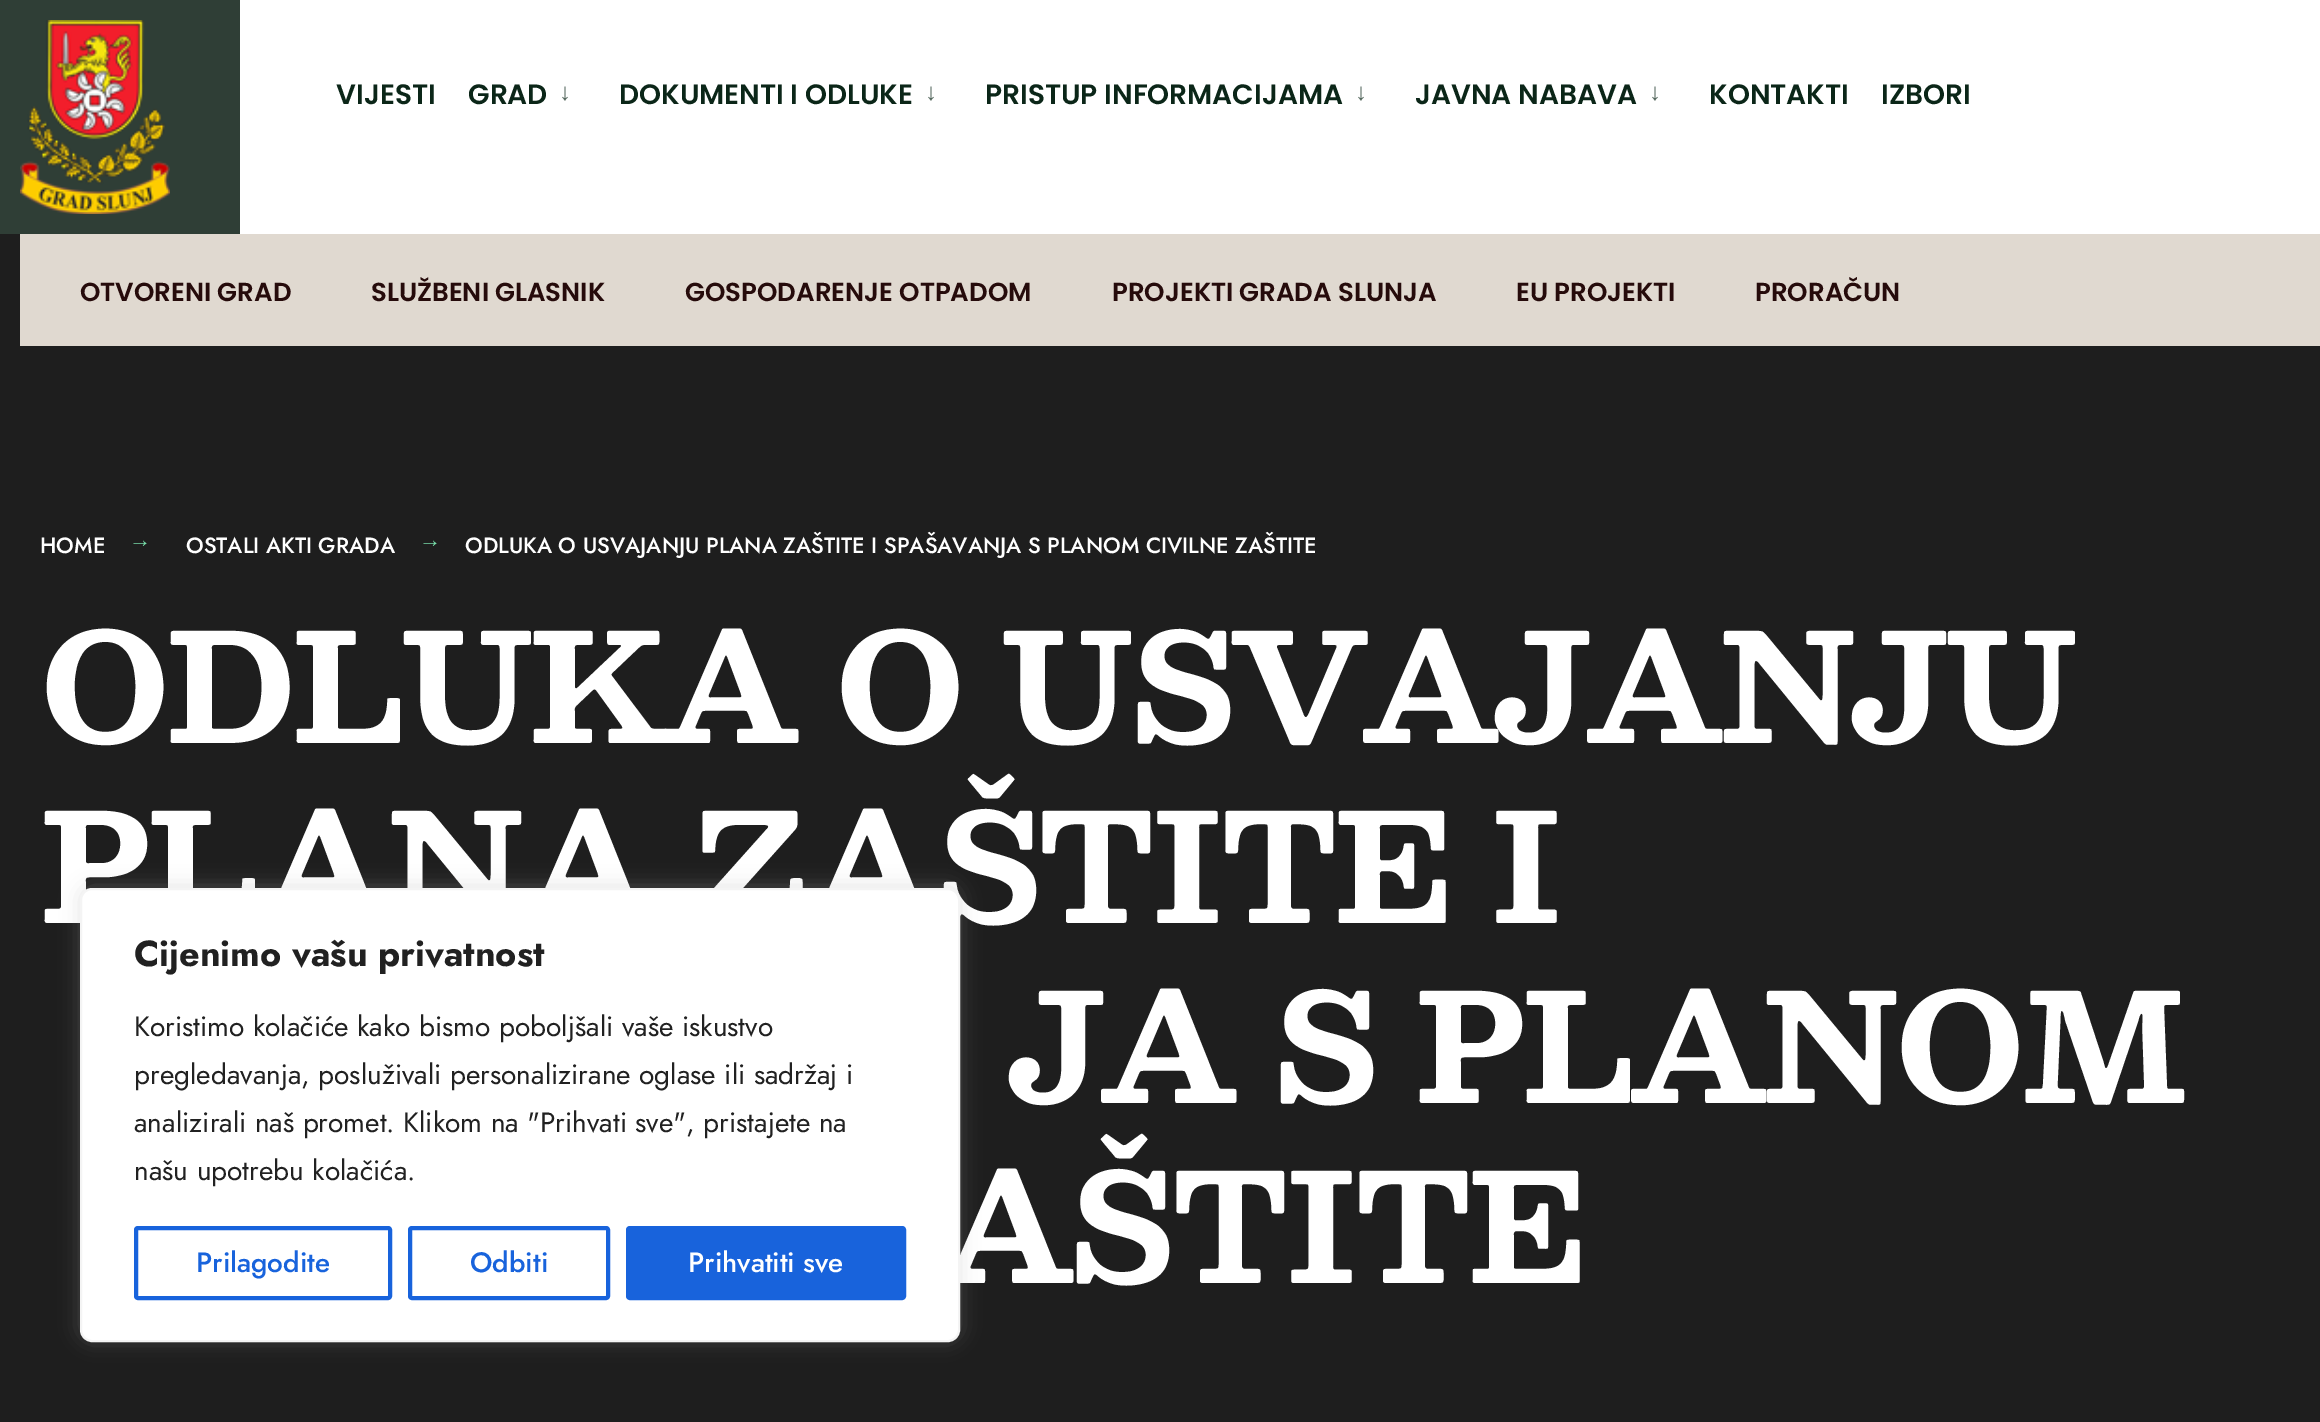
%!PS
<< /PageSize [2320 1422] /PageUsesTransparency true >> setpagedevice
/m/moveto load def
/f/fill load def
/s/stroke load def
/q/gsave load def
/Q_/grestore load def
/w/setlinewidth load def
/C { dup -16 bitshift 255 div exch dup -8 bitshift 255 and 255 div exch 255 and 255 div setrgbcolor } def
/F { [ exch dup neg 0 0 3 -1 roll 0 0 ] selectfont } def
/T { moveto show } def
/R { rectfill } def
/A { dup .setfillconstantalpha .setstrokeconstantalpha } def
/Q { 5 dict begin { /r /h /w /y /x } { exch def } forall
  x r add y moveto x w add y 2 copy h add r arct x w add y h add x 1 index r arct
  x y h add x y r arct x y 2 copy exch w add exch r arct closepath end } def
/S { 12 dict begin { /a /b /q /h /w /y /x } { exch def } forall gsave /was 0 def
  9 -2 -9 { dup b mul 4 div /e exch def 1 sub .425 mul 2.718 exch exp 1 add a .99 .min exch div /now exch def
    1 1 now sub 1 was sub div sub A /was now def
    w h .min e 2 mul add 0 gt { x e sub y e sub w e 2 mul add h e 2 mul add
      q e add b .6 mul add w h .min 2 div e add .min 0 .max Q fill } if } for grestore end } def
/I { 5 dict begin { /h /w /y /x /name } { exch def } forall
  gsave x y translate w h scale
  w h 8 [w 0 0 h 0 0] name (r) file false 3 colorimage grestore end } def
0 .pushpdf14devicefilter
0 1422 translate 1 -1 scale
4 setmiterlimit
16#1E1E1E C
0 0 2320 1422 R
16#FFFFFF C
240 0 2080 234 R
16#2F3E36 C
0 0 240 234 R
(1.rgb) 20 20 150 194 I
/Poppins-SemiBold 28 F
16#0B2618 C
(VIJESTI) 336 104 T
(GRAD) 468 104 T
/LiberationSans-Regular 24 F
16#54675D C
(↓) 559 100 T
/Poppins-SemiBold 28 F
16#0B2618 C
(DOKUMENTI I ODLUKE) 619 104 T
/LiberationSans-Regular 24 F
16#54675D C
(↓) 925 100 T
/Poppins-SemiBold 28 F
16#0B2618 C
(PRISTUP INFORMACIJAMA) 985 104 T
/LiberationSans-Regular 24 F
16#54675D C
(↓) 1355 100 T
/Poppins-SemiBold 28 F
16#0B2618 C
(JAVNA NABAVA) 1415 104 T
/LiberationSans-Regular 24 F
16#54675D C
(↓) 1649 100 T
/Poppins-SemiBold 28 F
16#0B2618 C
(KONTAKTI) 1709 104 T
(IZBORI) 1881 104 T
16#E0D9D0 C
20 234 2300 112 R
/Poppins-SemiBold 26 F
16#260B0B C
(OTVORENI GRAD) 80 301 T
(SLUŽBENI GLASNIK) 371 301 T
(GOSPODARENJE OTPADOM) 685 301 T
(PROJEKTI GRADA SLUNJA) 1112 301 T
(EU PROJEKTI) 1516 301 T
(PRORAČUN) 1755 301 T
/Jost-Medium 22 F
16#FFFFFF C
(HOME) 40 553 T
/LiberationSerif-Regular 22 F
16#78DDAA C
(→) 129 547 T
/Jost-Medium 22 F
16#FFFFFF C
(OSTALI AKTI GRADA) 186 553 T
/LiberationSerif-Regular 22 F
16#78DDAA C
(→) 419 547 T
/Jost-Medium 22 F
16#FFFFFF C
(ODLUKA O USVAJANJU PLANA ZAŠTITE I SPAŠAVANJA S PLANOM CIVILNE ZAŠTITE) 465 553 T
/Besley-Bold 150 F
40 743 m -4.5 0 (ODLUKA O USVAJANJU) ashow
40 923 m -4.5 0 (PLANA ZAŠTITE I) ashow
1008 1103 m -4.5 0 (JA S PLANOM) ashow
938 1283 m -4.5 0 (AŠTITE) ashow
16#ACABAB C
80 886 880 454 12 10 .3 S
16#FFFFFF C
81 889 878 452 11 Q q f Q_
16#F4F4F4 C
2 w
s
/Jost-Bold 36 F
16#212121 C
(Cijenimo vašu privatnost) 134 966 T
/Jost-Regular 28 F
(Koristimo kolačiće kako bismo poboljšali vaše iskustvo) 134 1036 T
(pregledavanja, posluživali personalizirane oglase ili sadržaj i) 134 1084 T
(analizirali naš promet. Klikom na "Prihvati sve", pristajete na) 134 1132 T
(našu upotrebu kolačića.) 134 1180 T
16#1863DC C
4 w
136 1228 254 70 2 Q s
/Jost-Medium 28 F
(Prilagodite) 196 1272 T
410 1228 198 70 2 Q s
(Odbiti) 470 1272 T
628 1228 276 70 2 Q q f Q_
s
16#FFFFFF C
(Prihvatiti sve) 688 1272 T
.poppdf14devicefilter showpage
